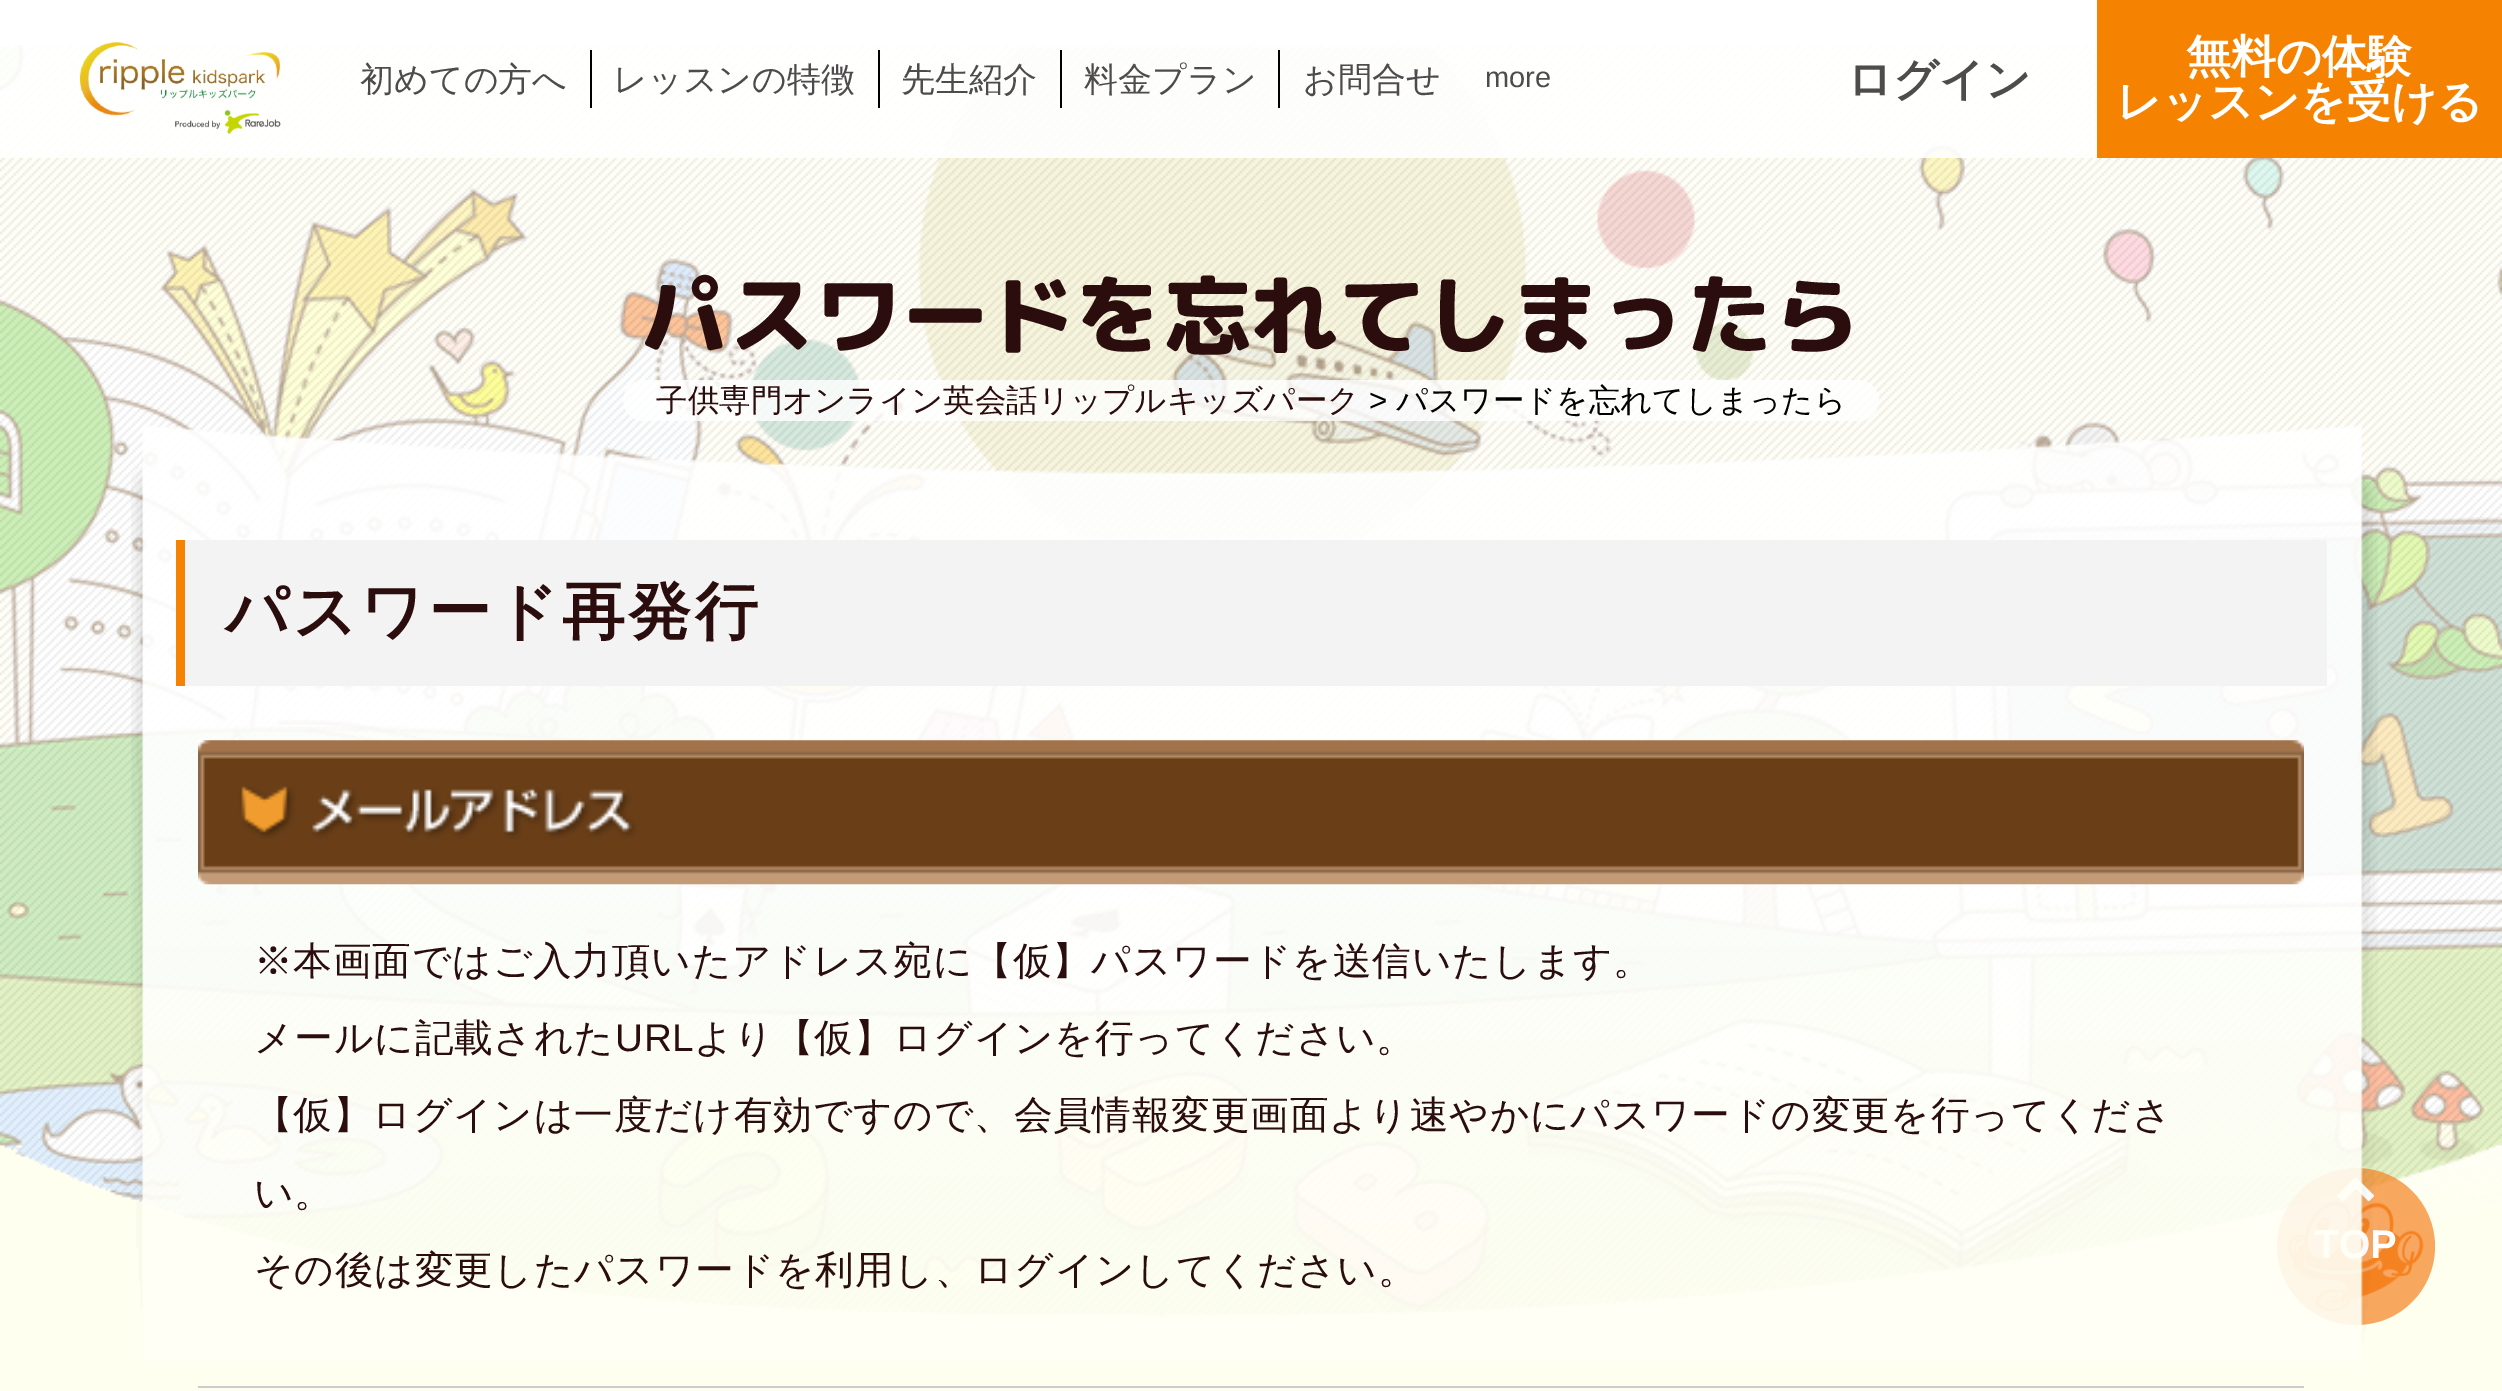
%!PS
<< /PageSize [2502 1391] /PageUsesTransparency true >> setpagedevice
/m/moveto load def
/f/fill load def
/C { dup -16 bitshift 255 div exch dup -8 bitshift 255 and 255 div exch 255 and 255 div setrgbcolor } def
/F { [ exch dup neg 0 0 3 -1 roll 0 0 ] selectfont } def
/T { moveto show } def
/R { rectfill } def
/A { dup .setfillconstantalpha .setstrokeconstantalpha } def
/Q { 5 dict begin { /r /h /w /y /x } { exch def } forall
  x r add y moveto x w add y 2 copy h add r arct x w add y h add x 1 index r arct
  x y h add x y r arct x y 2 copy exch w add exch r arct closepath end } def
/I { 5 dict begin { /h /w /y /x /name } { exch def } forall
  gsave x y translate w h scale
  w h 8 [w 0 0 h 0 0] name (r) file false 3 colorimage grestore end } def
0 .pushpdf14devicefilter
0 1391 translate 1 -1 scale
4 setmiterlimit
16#FFFFFF C
0 0 2502 1391 R
16#FFFFF0 C
0 1144 2502 247 R
(2.rgb) 0 45 2502 1272 I
0.9 A
16#FFFFFF C
0 45 2097 113 R
1 A
(1.rgb) 79 42 202 92 I
16#000000 C
590 50 2 58 R
/WenQuanYiZenHei-Medium 34 F
16#4E4B4D C
(初めての方へ) 360 91 T
16#000000 C
878 50 2 58 R
16#4E4B4D C
(レッスンの特徴) 613 91 T
16#000000 C
1060 50 2 58 R
16#4E4B4D C
(先生紹介) 901 91 T
16#000000 C
1278 50 2 58 R
16#4E4B4D C
(料金プラン) 1084 91 T
(お問合せ) 1303 91 T
/LiberationSans-Regular 29 F
(more) 1485 87 T
/WenQuanYiZenHei-Bold 45 F
(ログイン) 1847 95 T
16#F58200 C
2097 0 405 158 R
16#FFFFFF C
(無料の体験) 2186 72 T
(レッスンを受ける) 2116 117 T
/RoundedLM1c-Black 87.1 F
16#2B0D0D C
(パスワードを忘れてしまったら) 641 347 T
0.8 A
16#FFFFFF C
623 380 1256 41 20.5 Q f
/WenQuanYiZenHei-Medium 31.5 F
1 A
16#2B0D0D C
(子供専門オンライン英会話リップルキッズパーク) 656 411 T
/LiberationSans-Regular 31.5 F
16#000000 C
(>) 1369 411 T
/WenQuanYiZenHei-Medium 31.5 F
(パスワードを忘れてしまったら) 1396 411 T
(5.rgb) 2288 1200 136 112 I
0.7 A
16#F58220 C
2277 1168 158 157 78.5 Q f
1 A
(6.rgb) 2337 1177 37 24 I
/LiberationSans-Bold 40 F
16#FFFFFF C
(P) 2370 1258 T
(3.rgb) 131 425 2247 936 I
16#F3F3F3 C
185 540 2142 146 R
16#F58200 C
176 540 9 146 R
/WenQuanYiZenHei-Bold 63 F
16#2B0D0D C
225 633 m 3.25 0 (パスワード再発行) ashow
(4.rgb) 198 740 2106 145 I
/WenQuanYiZenHei-Medium 38.7 F
254 974 m .75 0 (※本画面ではご入力頂いたアドレス宛に【仮】パスワードを送信いたします。) ashow
254 1051 m .75 0 (メールに記載された) ashow
/LiberationSans-Regular 38.7 F
615 1051 m .75 0 (URL) ashow
/WenQuanYiZenHei-Medium 38.7 F
694 1051 m .75 0 (より【仮】ログインを行ってください。) ashow
254 1128 m .75 0 (【仮】ログインは一度だけ有効ですので、会員情報変更画面より速やかにパスワードの変更を行ってくださ) ashow
254 1206 m .75 0 (い。) ashow
254 1283 m .75 0 (その後は変更したパスワードを利用し、ログインしてください。) ashow
16#CCCCCC C
198 1386 2106 2 R
.poppdf14devicefilter showpage
